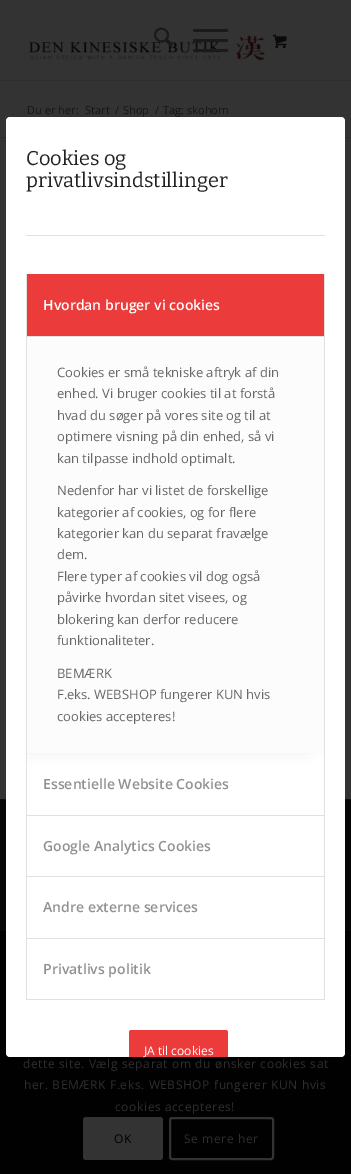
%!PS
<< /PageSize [351 1174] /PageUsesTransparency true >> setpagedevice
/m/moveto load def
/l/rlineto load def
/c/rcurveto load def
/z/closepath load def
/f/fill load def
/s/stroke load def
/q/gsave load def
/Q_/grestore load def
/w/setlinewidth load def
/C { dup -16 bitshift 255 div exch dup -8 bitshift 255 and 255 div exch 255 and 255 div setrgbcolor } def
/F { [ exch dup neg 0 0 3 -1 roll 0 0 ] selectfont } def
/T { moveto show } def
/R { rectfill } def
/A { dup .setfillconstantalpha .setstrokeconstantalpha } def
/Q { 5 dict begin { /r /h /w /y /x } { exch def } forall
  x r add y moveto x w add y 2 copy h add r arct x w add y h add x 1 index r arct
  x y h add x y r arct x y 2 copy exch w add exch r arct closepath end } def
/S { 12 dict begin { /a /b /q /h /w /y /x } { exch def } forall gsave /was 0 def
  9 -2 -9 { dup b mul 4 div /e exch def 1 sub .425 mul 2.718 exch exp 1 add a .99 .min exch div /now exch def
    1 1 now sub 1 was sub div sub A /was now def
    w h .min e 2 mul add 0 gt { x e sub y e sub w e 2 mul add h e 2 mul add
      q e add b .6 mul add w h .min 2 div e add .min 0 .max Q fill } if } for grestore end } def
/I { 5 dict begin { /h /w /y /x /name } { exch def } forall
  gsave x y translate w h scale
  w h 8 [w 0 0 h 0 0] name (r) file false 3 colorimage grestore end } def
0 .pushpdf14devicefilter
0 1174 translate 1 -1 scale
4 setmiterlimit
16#333333 C
0 0 351 1174 R
16#2D2D2D C
0 80 351 1 R
(3.rgb) 28 35 237 26 I
(1.rgb) 154 27 19 20 I
16#1A1A1A C
193 39 35 3 1.5 Q f
193 29 35 3 1.5 Q f
193 49 35 3 1.5 Q f
(2.rgb) 273 34 14 15 I
/OpenSans-Regular 11 F
16#141414 C
(Du er her:) 27 114 T
(Start) 85 114 T
(/) 115 114 T
(Shop) 123 114 T
(/) 155 114 T
(Tag: skohorn) 163 114 T
16#2D2D2D C
0 137 351 1 R
16#070707 C
0 800 351 374 R
16#0E0E0E C
0 799 351 1 R
0.85 A
16#000000 C
0 931 351 243 R
1 A
16#FFFFFF C
6 117 339 940 4 Q f
/Bitter-Thin 20 F
16#222222 C
(Cookies og) 26 165 T
(privatlivsindstillinger) 26 187 T
16#E1E1E1 C
26 235 299 1 R
324 274 1 726 R
26 999 299 1 R
26 274 1 726 R
q
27 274 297 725 rectclip
16#000000 C
29 346 277 397 0 10 .2 S
Q_
16#EB3B3B C
27 274 297 62 R
16#FCFCFC C
27 336 297 417 2 Q f
16#E1E1E1 C
27 336 297 1 R
/OpenSans-SemiBold 14 F
16#FFFFFF C
(Hvordan bruger vi cookies) 43 310 T
/OpenSans-Regular 13 F
16#666666 C
(Cookies er små tekniske aftryk af din) 57 377 T
(enhed. Vi bruger cookies til at forstå) 57 398 T
(hvad du søger på vores site og til at) 57 420 T
(optimere visning på din enhed, så vi) 57 441 T
(kan tilpasse indhold optimalt.) 57 463 T
(Nedenfor har vi listet de forskellige) 57 495 T
(kategorier af cookies, og for flere) 57 517 T
(kategorier kan du separat fravælge) 57 538 T
(dem.) 57 559 T
(Flere typer af cookies vil dog også) 57 581 T
(påvirke hvordan sitet visees, og) 57 602 T
(blokering kan derfor reducere) 57 624 T
(funktionaliteter.) 57 645 T
(BEMÆRK) 57 678 T
(F.eks. WEBSHOP fungerer KUN hvis) 57 699 T
(cookies accepteres!) 57 721 T
16#E1E1E1 C
27 815 297 1 R
/OpenSans-SemiBold 14 F
16#919191 C
(Essentielle Website Cookies) 43 789 T
16#E1E1E1 C
27 876 297 1 R
16#919191 C
(Google Analytics Cookies) 43 851 T
16#E1E1E1 C
27 938 297 1 R
16#919191 C
(Andre externe services) 43 912 T
(Privatlivs politik) 43 974 T
16#EB3B3B C
132 1030 m 93 0 l 1.5 0 3 1.5 3 3 c 0 24 l -99 0 l 0 -24 l 0 -1.5 1.5 -3 3 -3 c z f
132 1030 m -2 0 -3 1 -3 3 c 0 24 l 2 0 l 0 -24 l 0 -1 0 -1 1 -1 c 93 0 l 1 0 1 0 1 1 c 0 24 l 2 0 l 0 -24 l 0 -2 -1 -3 -3 -3 c z f
/OpenSans-Regular 12 F
16#FFFFFF C
(JA til cookies) 144 1055 T
16#2E2E2E C
23 1068 m .6 0 (dette site. Vælg separat om du ønsker cookies sat) ashow
24 1089 m .6 0 (her. BEMÆRK F.eks. WEBSHOP fungerer KUN hvis) ashow
115 1111 m .6 0 (cookies accepteres!) ashow
16#333333 C
83 1117 80 43 3 Q f
16#000000 C
114 1143 m .6 0 (OK) ashow
16#333333 C
2 w
170 1118 103 41 2 Q s
16#2E2E2E C
184 1143 m .6 0 (Se mere her) ashow
.poppdf14devicefilter showpage
